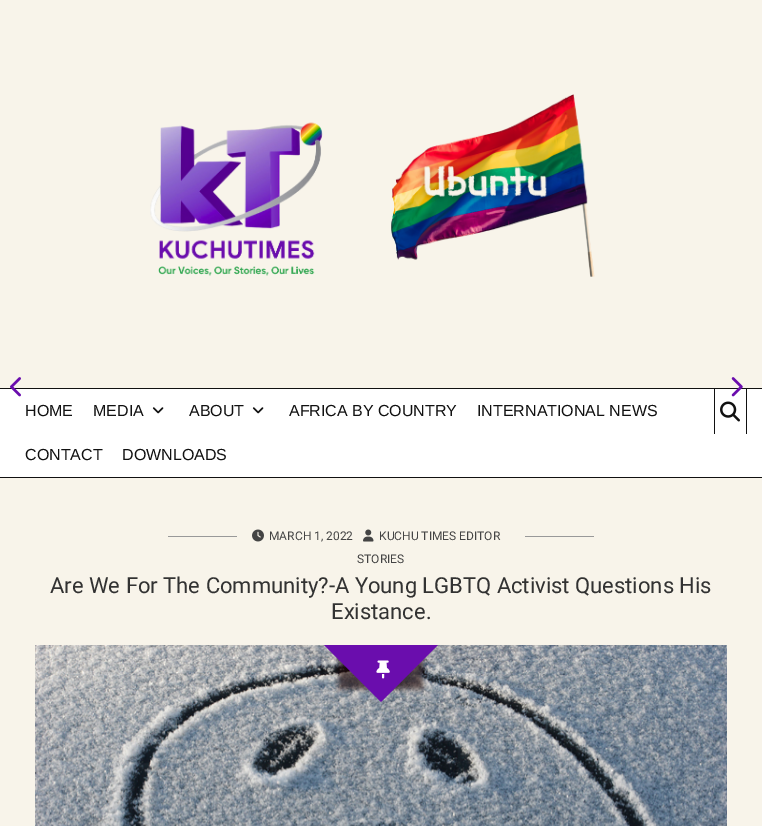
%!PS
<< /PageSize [762 826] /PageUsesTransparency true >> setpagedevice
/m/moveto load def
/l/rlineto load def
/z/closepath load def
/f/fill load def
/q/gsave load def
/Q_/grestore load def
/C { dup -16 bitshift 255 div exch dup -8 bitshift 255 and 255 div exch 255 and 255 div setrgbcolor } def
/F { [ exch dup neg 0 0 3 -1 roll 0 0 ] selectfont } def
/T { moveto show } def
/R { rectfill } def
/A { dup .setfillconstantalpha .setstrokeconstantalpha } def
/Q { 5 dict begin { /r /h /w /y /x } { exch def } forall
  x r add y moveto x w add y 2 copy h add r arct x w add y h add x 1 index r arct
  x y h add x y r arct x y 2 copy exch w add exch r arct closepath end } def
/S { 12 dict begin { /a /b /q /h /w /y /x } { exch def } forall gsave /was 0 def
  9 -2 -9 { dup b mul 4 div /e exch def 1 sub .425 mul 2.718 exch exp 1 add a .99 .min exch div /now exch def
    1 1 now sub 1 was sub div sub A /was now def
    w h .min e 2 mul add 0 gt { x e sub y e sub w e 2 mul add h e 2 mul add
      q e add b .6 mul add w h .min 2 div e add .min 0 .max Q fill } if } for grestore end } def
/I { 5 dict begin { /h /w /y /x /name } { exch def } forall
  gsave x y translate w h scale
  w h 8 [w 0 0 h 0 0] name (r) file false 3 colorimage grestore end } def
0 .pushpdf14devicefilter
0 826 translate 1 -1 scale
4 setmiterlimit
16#F8F4EA C
0 0 762 826 R
(1.rgb) 150 94 445 183 I
16#FFFFFF C
0 389 762 88 R
16#111111 C
0 388 762 1 R
0 477 762 1 R
/LiberationSans-Regular 16 F
(HOME) 25 416 T
(MEDIA) 93 416 T
(2.rgb) 152 407 12 7 I
(ABOUT) 189 416 T
(2.rgb) 252 407 12 7 I
(AFRICA BY COUNTRY) 289 416 T
(INTERNATIONAL NEWS) 477 416 T
(CONTACT) 25 460 T
(DOWNLOADS) 122 460 T
746 389 1 45 R
714 389 1 45 R
(3.rgb) 720 401 20 21 I
(4.rgb) 10 377 11 20 I
(5.rgb) 731 377 12 20 I
16#999999 C
168 536 69 1 R
(6.rgb) 252 529 12 13 I
/Roboto-Regular 12 F
16#444444 C
(MARCH 1, 2022) 269 540 T
(7.rgb) 363 529 11 13 I
(KUCHU TIMES EDITOR) 379 540 T
16#999999 C
525 536 69 1 R
16#444444 C
(STORIES) 357 563 T
/Roboto-Regular 22 F
16#323232 C
(Are We For The Community?-A Young LGBTQ Activist Questions His) 50 593 T
(Existance.) 331 619 T
(9.rgb) 35 645 692 181 I
q
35 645 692 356 rectclip
16#1E0808 C
339 605 84 84 0 2.5 .64 S
Q_
q
35 645 692 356 rectclip
16#6A0DAD C
381 589 m 57 56 l -57 57 l -57 -57 l z f
Q_
(8.rgb) 376 660 14 19 I
.poppdf14devicefilter showpage
